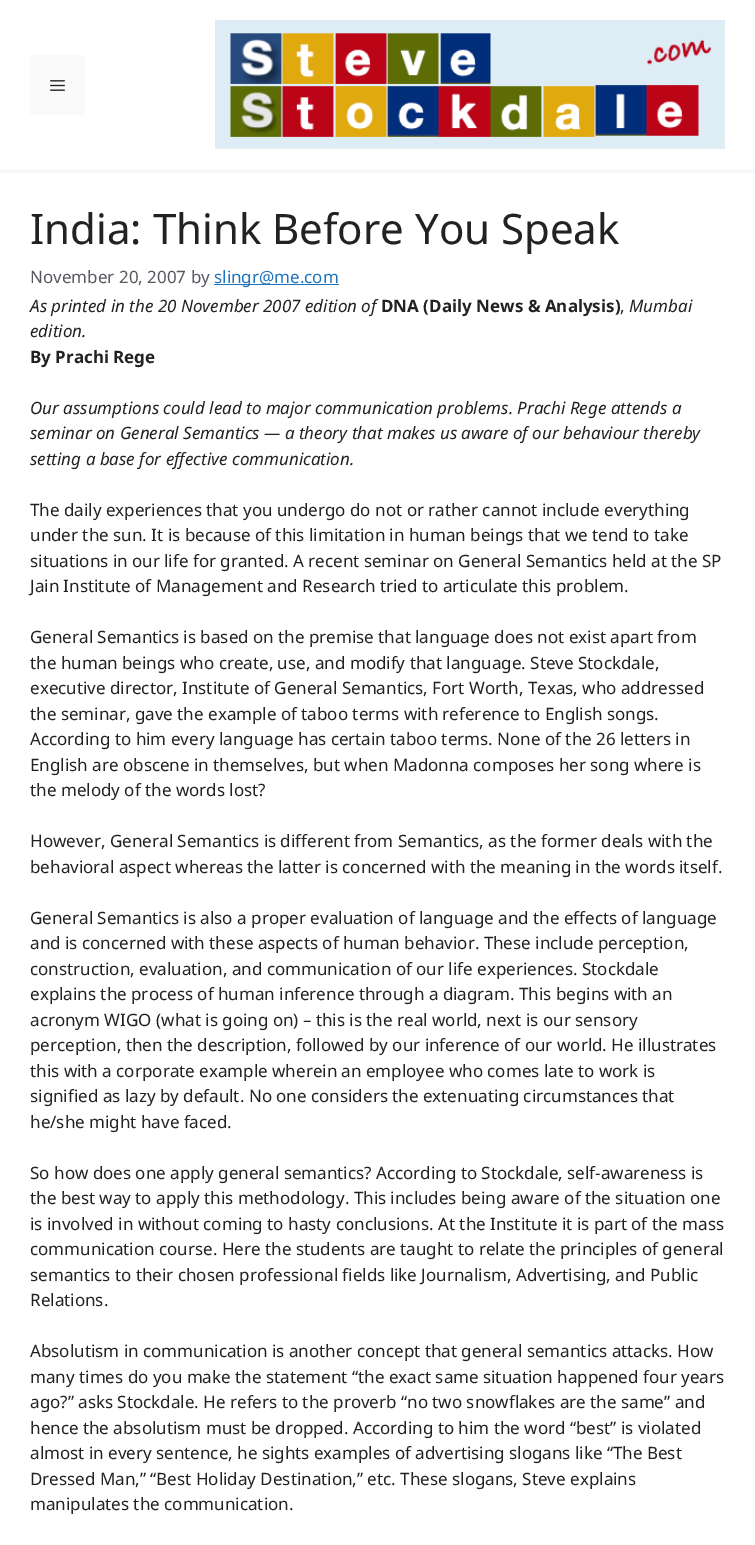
%!PS
<< /PageSize [755 1545] >> setpagedevice
/C { dup -16 bitshift 255 div exch dup -8 bitshift 255 and 255 div exch 255 and 255 div setrgbcolor } def
/F { [ exch dup neg 0 0 3 -1 roll 0 0 ] selectfont } def
/T { moveto show } def
/R { rectfill } def
/I { 5 dict begin { /h /w /y /x /name } { exch def } forall
  gsave x y translate w h scale
  w h 8 [w 0 0 h 0 0] name (r) file false 3 colorimage grestore end } def
0 1545 translate 1 -1 scale
4 setmiterlimit
16#F7F8F9 C
0 0 755 1545 R
16#FFFFFF C
0 0 755 169 R
16#FAFAFA C
30 55 55 60 R
(1.rgb) 50 80 15 11 I
(2.rgb) 215 20 510 129 I
16#FFFFFF C
0 173 755 1372 R
/NotoSans-Regular 42 F
16#222222 C
(India: Think Before You Speak) 30 244 T
/NotoSans-Regular 17 F
16#575760 C
(November 20, 2007 by) 30 283 T
16#1E73BE C
214 284 125 1 R
(slingr@me.com) 214 283 T
/NotoSans-Italic 17 F
16#222222 C
(As printed in the 20 November 2007 edition of) 30 312 T
/NotoSans-Bold 17 F
(DNA \(Daily News & Analysis\)) 381 312 T
/NotoSans-Regular 17 F
(,) 620 312 T
/NotoSans-Italic 17 F
(Mumbai) 629 312 T
(edition.) 30 337 T
/NotoSans-Bold 17 F
(By Prachi Rege) 30 363 T
/NotoSans-Italic 17 F
(Our assumptions could lead to major communication problems. Prachi Rege attends a) 30 414 T
(seminar on General Semantics — a theory that makes us aware of our behaviour thereby) 30 439 T
(setting a base for effective communication.) 30 465 T
/NotoSans-Regular 17 F
(The daily experiences that you undergo do not or rather cannot include everything) 30 516 T
(under the sun. It is because of this limitation in human beings that we tend to take) 30 541 T
(situations in our life for granted. A recent seminar on General Semantics held at the SP) 30 567 T
(Jain Institute of Management and Research tried to articulate this problem.) 30 592 T
(General Semantics is based on the premise that language does not exist apart from) 30 643 T
(the human beings who create, use, and modify that language. Steve Stockdale,) 30 669 T
(executive director, Institute of General Semantics, Fort Worth, Texas, who addressed) 30 694 T
(the seminar, gave the example of taboo terms with reference to English songs.) 30 720 T
(According to him every language has certain taboo terms. None of the 26 letters in) 30 745 T
(English are obscene in themselves, but when Madonna composes her song where is) 30 771 T
(the melody of the words lost?) 30 796 T
(However, General Semantics is different from Semantics, as the former deals with the) 30 847 T
(behavioral aspect whereas the latter is concerned with the meaning in the words itself.) 30 873 T
(General Semantics is also a proper evaluation of language and the effects of language) 30 924 T
(and is concerned with these aspects of human behavior. These include perception,) 30 949 T
(construction, evaluation, and communication of our life experiences. Stockdale) 30 975 T
(explains the process of human inference through a diagram. This begins with an) 30 1000 T
(acronym WIGO \(what is going on\) – this is the real world, next is our sensory) 30 1026 T
(perception, then the description, followed by our inference of our world. He illustrates) 30 1051 T
(this with a corporate example wherein an employee who comes late to work is) 30 1077 T
(signified as lazy by default. No one considers the extenuating circumstances that) 30 1102 T
(he/she might have faced.) 30 1128 T
(So how does one apply general semantics? According to Stockdale, self-awareness is) 30 1179 T
(the best way to apply this methodology. This includes being aware of the situation one) 30 1204 T
(is involved in without coming to hasty conclusions. At the Institute it is part of the mass) 30 1230 T
(communication course. Here the students are taught to relate the principles of general) 30 1255 T
(semantics to their chosen professional fields like Journalism, Advertising, and Public) 30 1281 T
(Relations.) 30 1306 T
(Absolutism in communication is another concept that general semantics attacks. How) 30 1357 T
(many times do you make the statement “the exact same situation happened four years) 30 1383 T
(ago?” asks Stockdale. He refers to the proverb “no two snowflakes are the same” and) 30 1408 T
(hence the absolutism must be dropped. According to him the word “best” is violated) 30 1434 T
(almost in every sentence, he sights examples of advertising slogans like “The Best) 30 1459 T
(Dressed Man,” “Best Holiday Destination,” etc. These slogans, Steve explains) 30 1485 T
(manipulates the communication.) 30 1510 T
showpage
